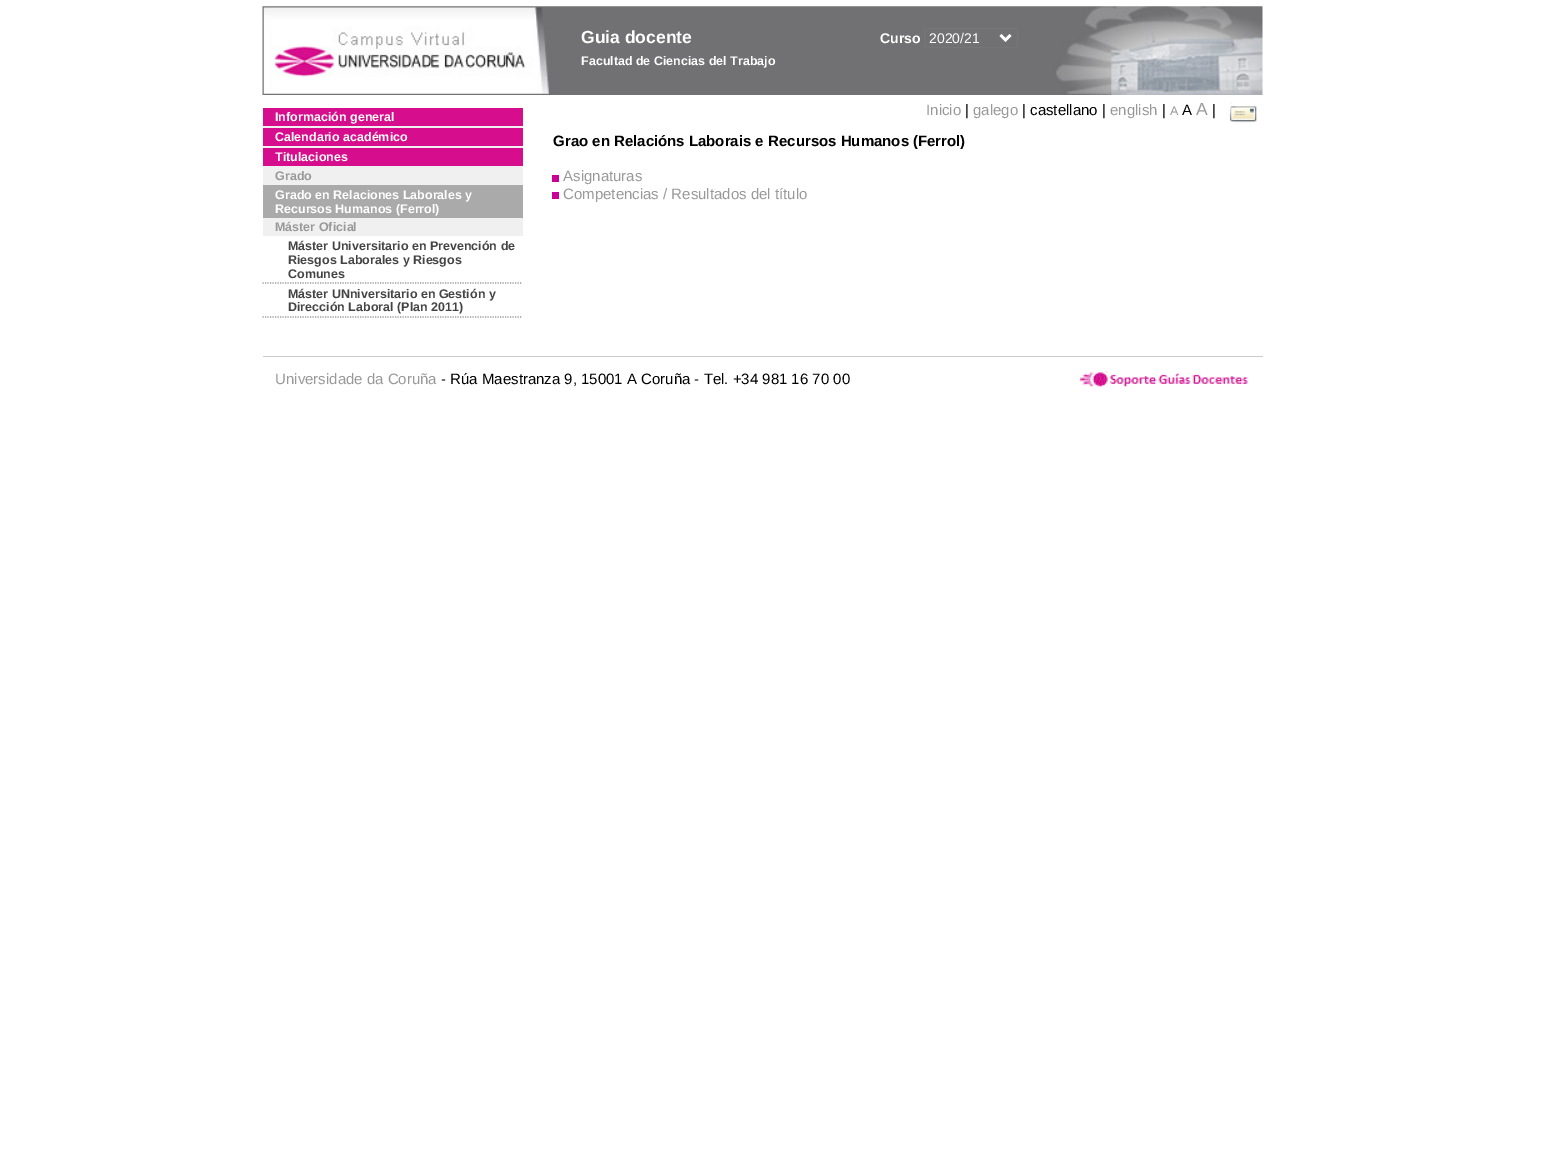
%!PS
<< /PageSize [1563 1167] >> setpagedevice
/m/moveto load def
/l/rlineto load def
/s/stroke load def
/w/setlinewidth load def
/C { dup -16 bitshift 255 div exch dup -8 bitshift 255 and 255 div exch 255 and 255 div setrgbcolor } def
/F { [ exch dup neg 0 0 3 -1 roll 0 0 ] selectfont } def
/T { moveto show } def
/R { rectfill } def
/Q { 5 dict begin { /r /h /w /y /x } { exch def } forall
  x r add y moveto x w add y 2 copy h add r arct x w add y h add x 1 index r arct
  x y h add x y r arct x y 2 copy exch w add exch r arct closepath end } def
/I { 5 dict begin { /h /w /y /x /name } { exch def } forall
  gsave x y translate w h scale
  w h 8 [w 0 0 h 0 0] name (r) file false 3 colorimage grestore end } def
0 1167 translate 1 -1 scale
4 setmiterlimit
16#FFFFFF C
0 0 1563 1167 R
(1.rgb) 262 6 1001 89 I
/LiberationSans-Bold 17.5 F
(Guia docente) 581 43 T
/LiberationSans-Bold 14 F
(Curso) 880 43 T
16#767676 C
924.5 28.5 93 19 2 Q s
16#FFFFFF C
2.5 w
1000.5 35 m 5 5 l 5 -5 l s
/LiberationSans-Regular 14 F
(2020/21) 929 43 T
/LiberationSans-Bold 12.5 F
(Facultad de Ciencias del Trabajo) 581 65 T
/LiberationSans-Regular 15 F
16#999999 C
(Inicio) 926 115 T
16#000000 C
(|) 965 115 T
16#999999 C
(galego) 973 115 T
16#000000 C
(| castellano |) 1022 115 T
16#999999 C
(english) 1110 115 T
16#000000 C
(|) 1162 115 T
/LiberationSans-Regular 12.5 F
16#999999 C
(A) 1170 115 T
/LiberationSans-Regular 15 F
16#000000 C
(A) 1182 115 T
/LiberationSans-Regular 17.5 F
16#999999 C
(A) 1196 115 T
/LiberationSans-Regular 15 F
16#000000 C
(|) 1212 115 T
(2.rgb) 1229 102 28 21 I
16#F0F0F0 C
263 126 260 110 R
16#D60D8C C
263 108 260 18 R
/LiberationSans-Bold 12.5 F
16#FFFFFF C
(Información general) 275 121 T
16#D60D8C C
263 128 260 18 R
16#FFFFFF C
(Calendario académico) 275 141 T
16#D60D8C C
263 148 260 18 R
16#FFFFFF C
(Titulaciones) 275 161 T
16#999999 C
(Grado) 275 180 T
16#AAAAAA C
263 185 260 33 R
16#FFFFFF C
(Grado en Relaciones Laborales y) 275 199 T
(Recursos Humanos \(Ferrol\)) 275 213 T
16#999999 C
(Máster Oficial) 275 231 T
1.2 w
[1.25 1.25] 0 setdash
262.5 283 m 260 0 l s
16#444444 C
(Máster Universitario en Prevención de) 288 250 T
(Riesgos Laborales y Riesgos) 288 264 T
(Comunes) 288 278 T
16#999999 C
262.5 317 m 260 0 l s
16#444444 C
(Máster UNniversitario en Gestión y) 288 298 T
(Dirección Laboral \(Plan 2011\)) 288 311 T
/LiberationSans-Bold 15 F
16#000000 C
(Grao en Relacións Laborais e Recursos Humanos \(Ferrol\)) 553 146 T
16#CC0099 C
552 175 7 7 R
/LiberationSans-Regular 15 F
16#999999 C
(Asignaturas) 563 181 T
16#CC0099 C
552 192 7 7 R
16#999999 C
(Competencias / Resultados del título) 563 199 T
16#CCCCCC C
263 356 1000 1 R
16#999999 C
(Universidade da Coruña) 275 384 T
16#000000 C
(- Rúa Maestranza 9, 15001 A Coruña - Tel. +34 981 16 70 00) 441 384 T
(3.rgb) 1079 371 169 16 I
showpage
